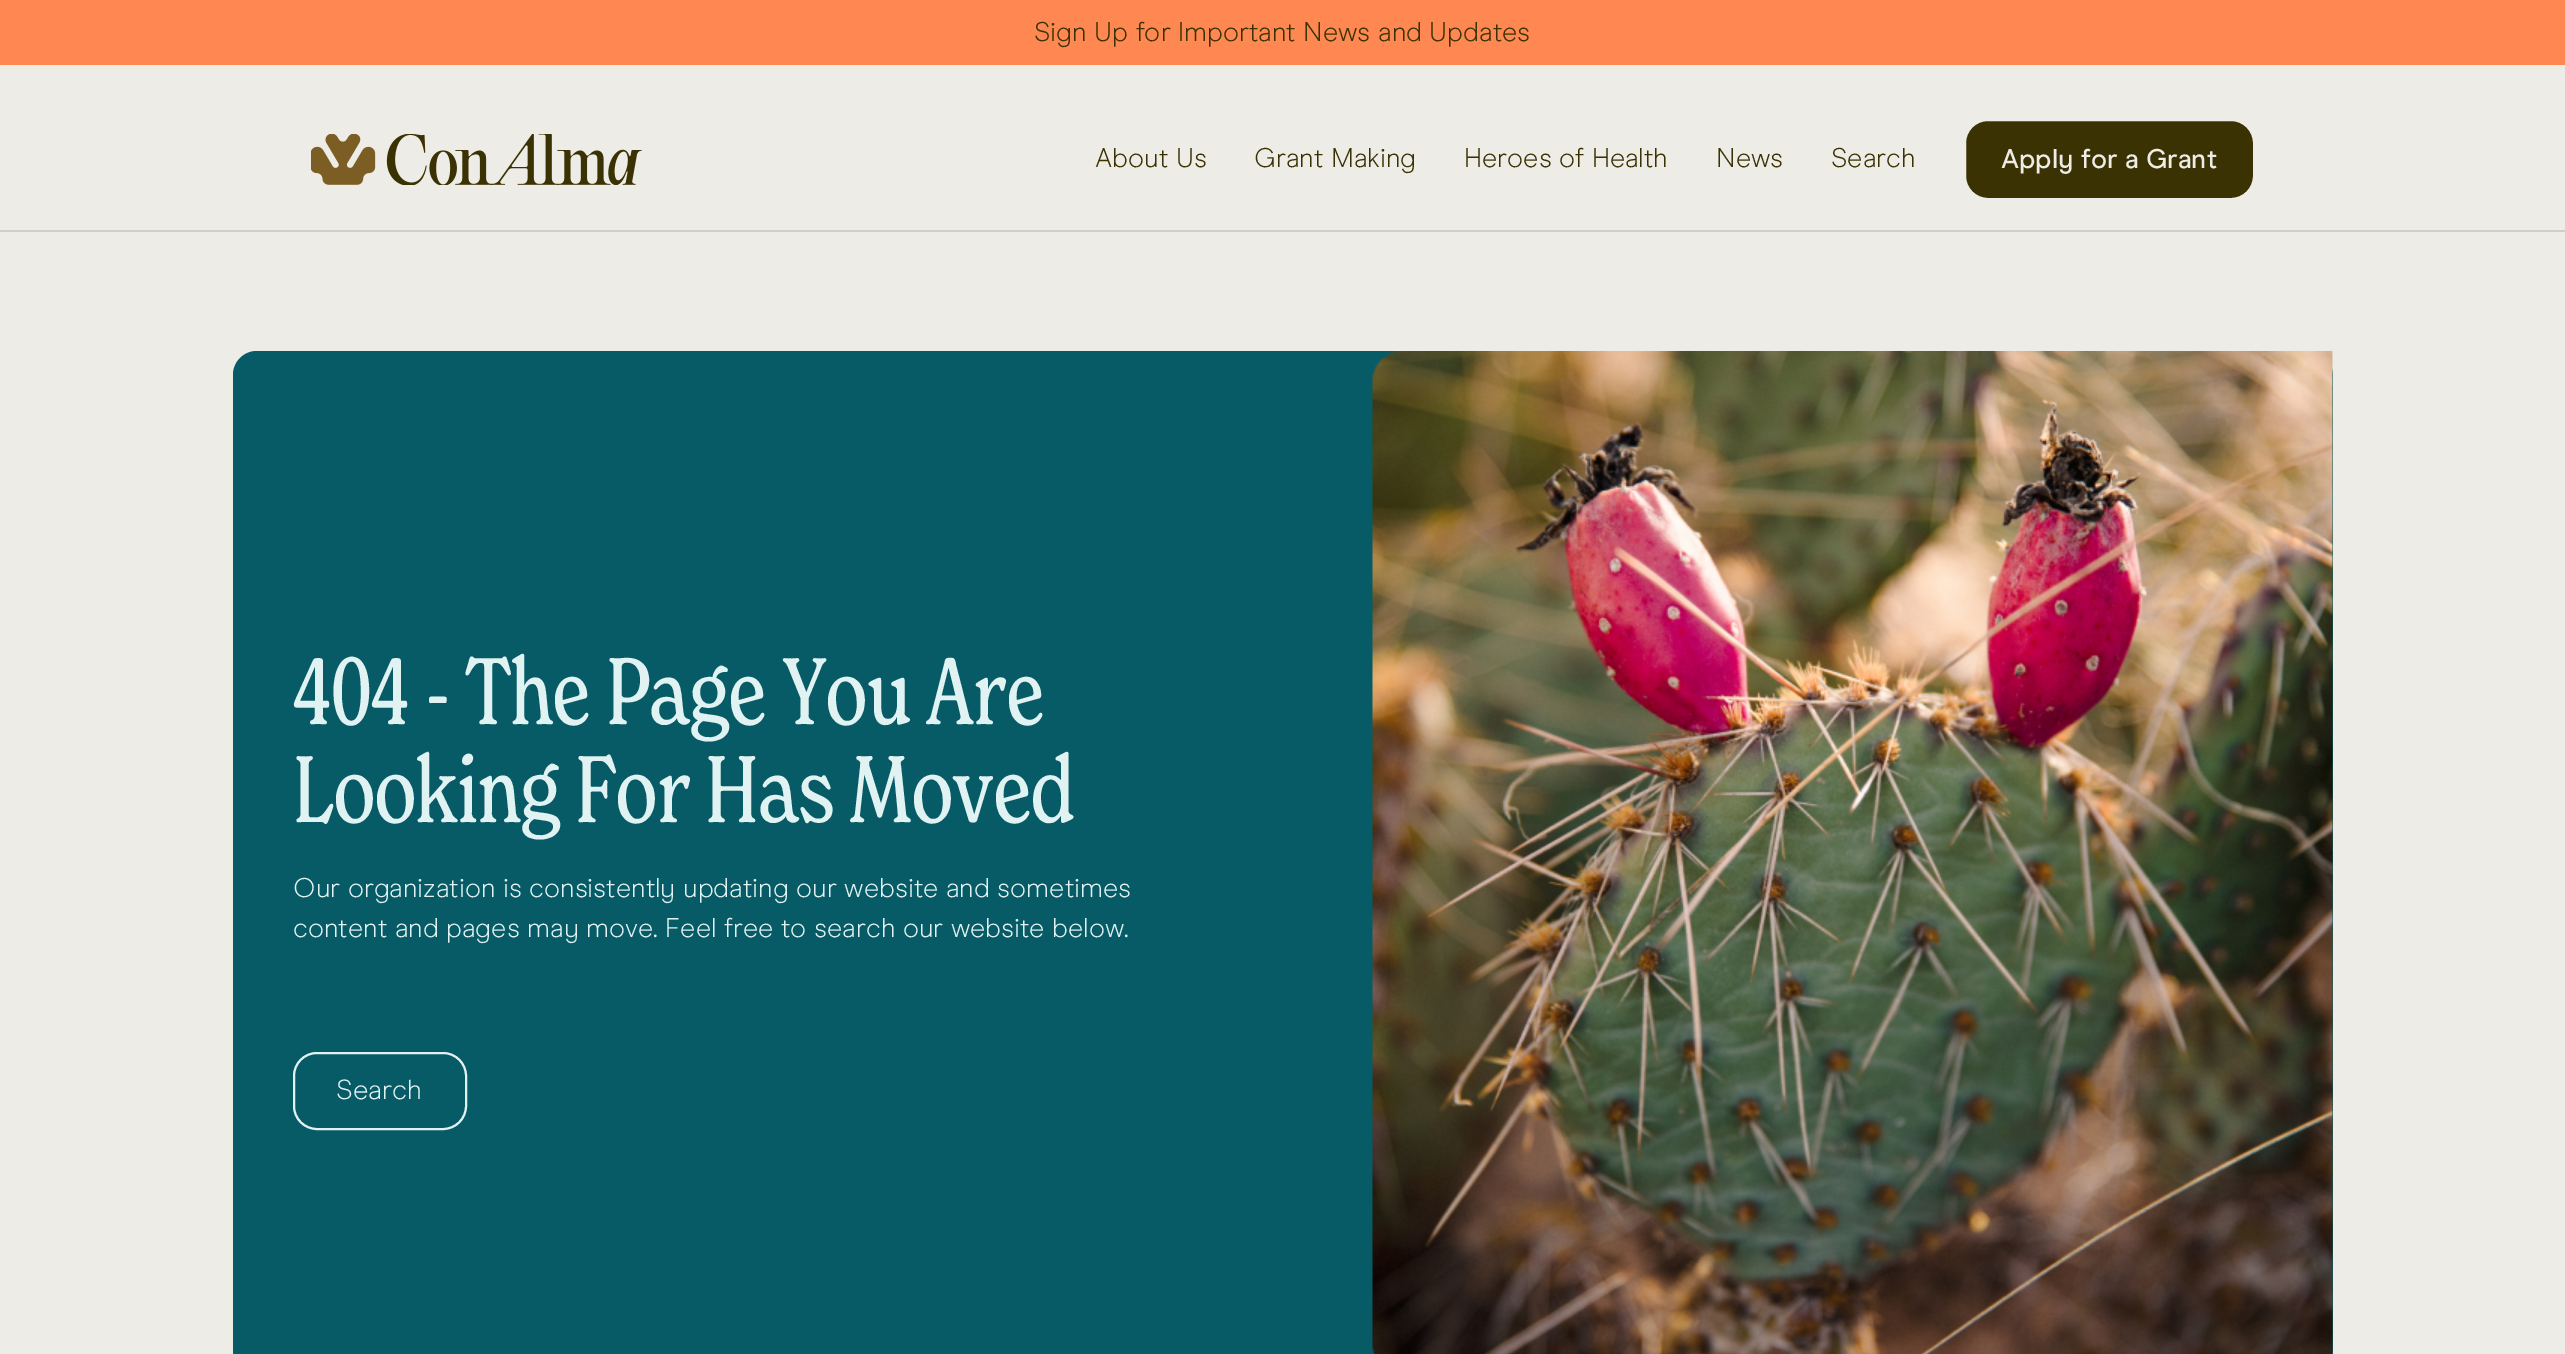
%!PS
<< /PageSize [2565 1354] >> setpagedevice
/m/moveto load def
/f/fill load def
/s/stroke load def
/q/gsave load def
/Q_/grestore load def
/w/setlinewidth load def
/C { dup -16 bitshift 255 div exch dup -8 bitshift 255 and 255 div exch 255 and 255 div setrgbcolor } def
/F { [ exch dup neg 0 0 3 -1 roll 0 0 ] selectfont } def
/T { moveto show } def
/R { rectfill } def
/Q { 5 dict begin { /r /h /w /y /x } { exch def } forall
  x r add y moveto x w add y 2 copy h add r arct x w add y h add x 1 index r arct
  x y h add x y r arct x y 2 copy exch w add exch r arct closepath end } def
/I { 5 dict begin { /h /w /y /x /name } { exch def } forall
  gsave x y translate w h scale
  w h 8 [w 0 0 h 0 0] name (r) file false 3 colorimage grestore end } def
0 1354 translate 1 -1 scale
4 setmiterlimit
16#EDECE6 C
0 0 2565 1354 R
16#FF8751 C
0 0 2565 65 R
/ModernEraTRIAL-Light 27 F
16#3A3203 C
(Sign Up for Important News and Updates) 1034 41 T
16#D3CEC2 C
0 230 2565 2 R
(1.rgb) 311 134 331 51 I
16#3A3203 C
(About Us) 1095 167 T
(Grant Making) 1254 167 T
(Heroes of Health) 1464 167 T
(News) 1716 167 T
(Search) 1831 167 T
1965 120 289 79 23 Q q f Q_
16#EDECE6 C
2 w
s
/ModernEraTRIAL-Medium 27 F
(Apply for a Grant) 2001 168 T
16#075B66 C
233 351 2100 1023 24 Q f
/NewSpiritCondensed-Regular 93 F
16#E0F2F2 C
293 724 m -1.5 0 (404 - The Page You Are) ashow
293 822 m -1.5 0 (Looking For Has Moved) ashow
/ModernEraTRIAL-Light 27 F
(Our organization is consistently updating our website and sometimes) 293 897 T
(content and pages may move. Feel free to search our website below.) 293 937 T
294 1053 172 76 23 Q s
/ModernEraTRIAL-Light 27.5 F
(Search) 336 1099 T
(2.rgb) 1372 351 961 1003 I
showpage
